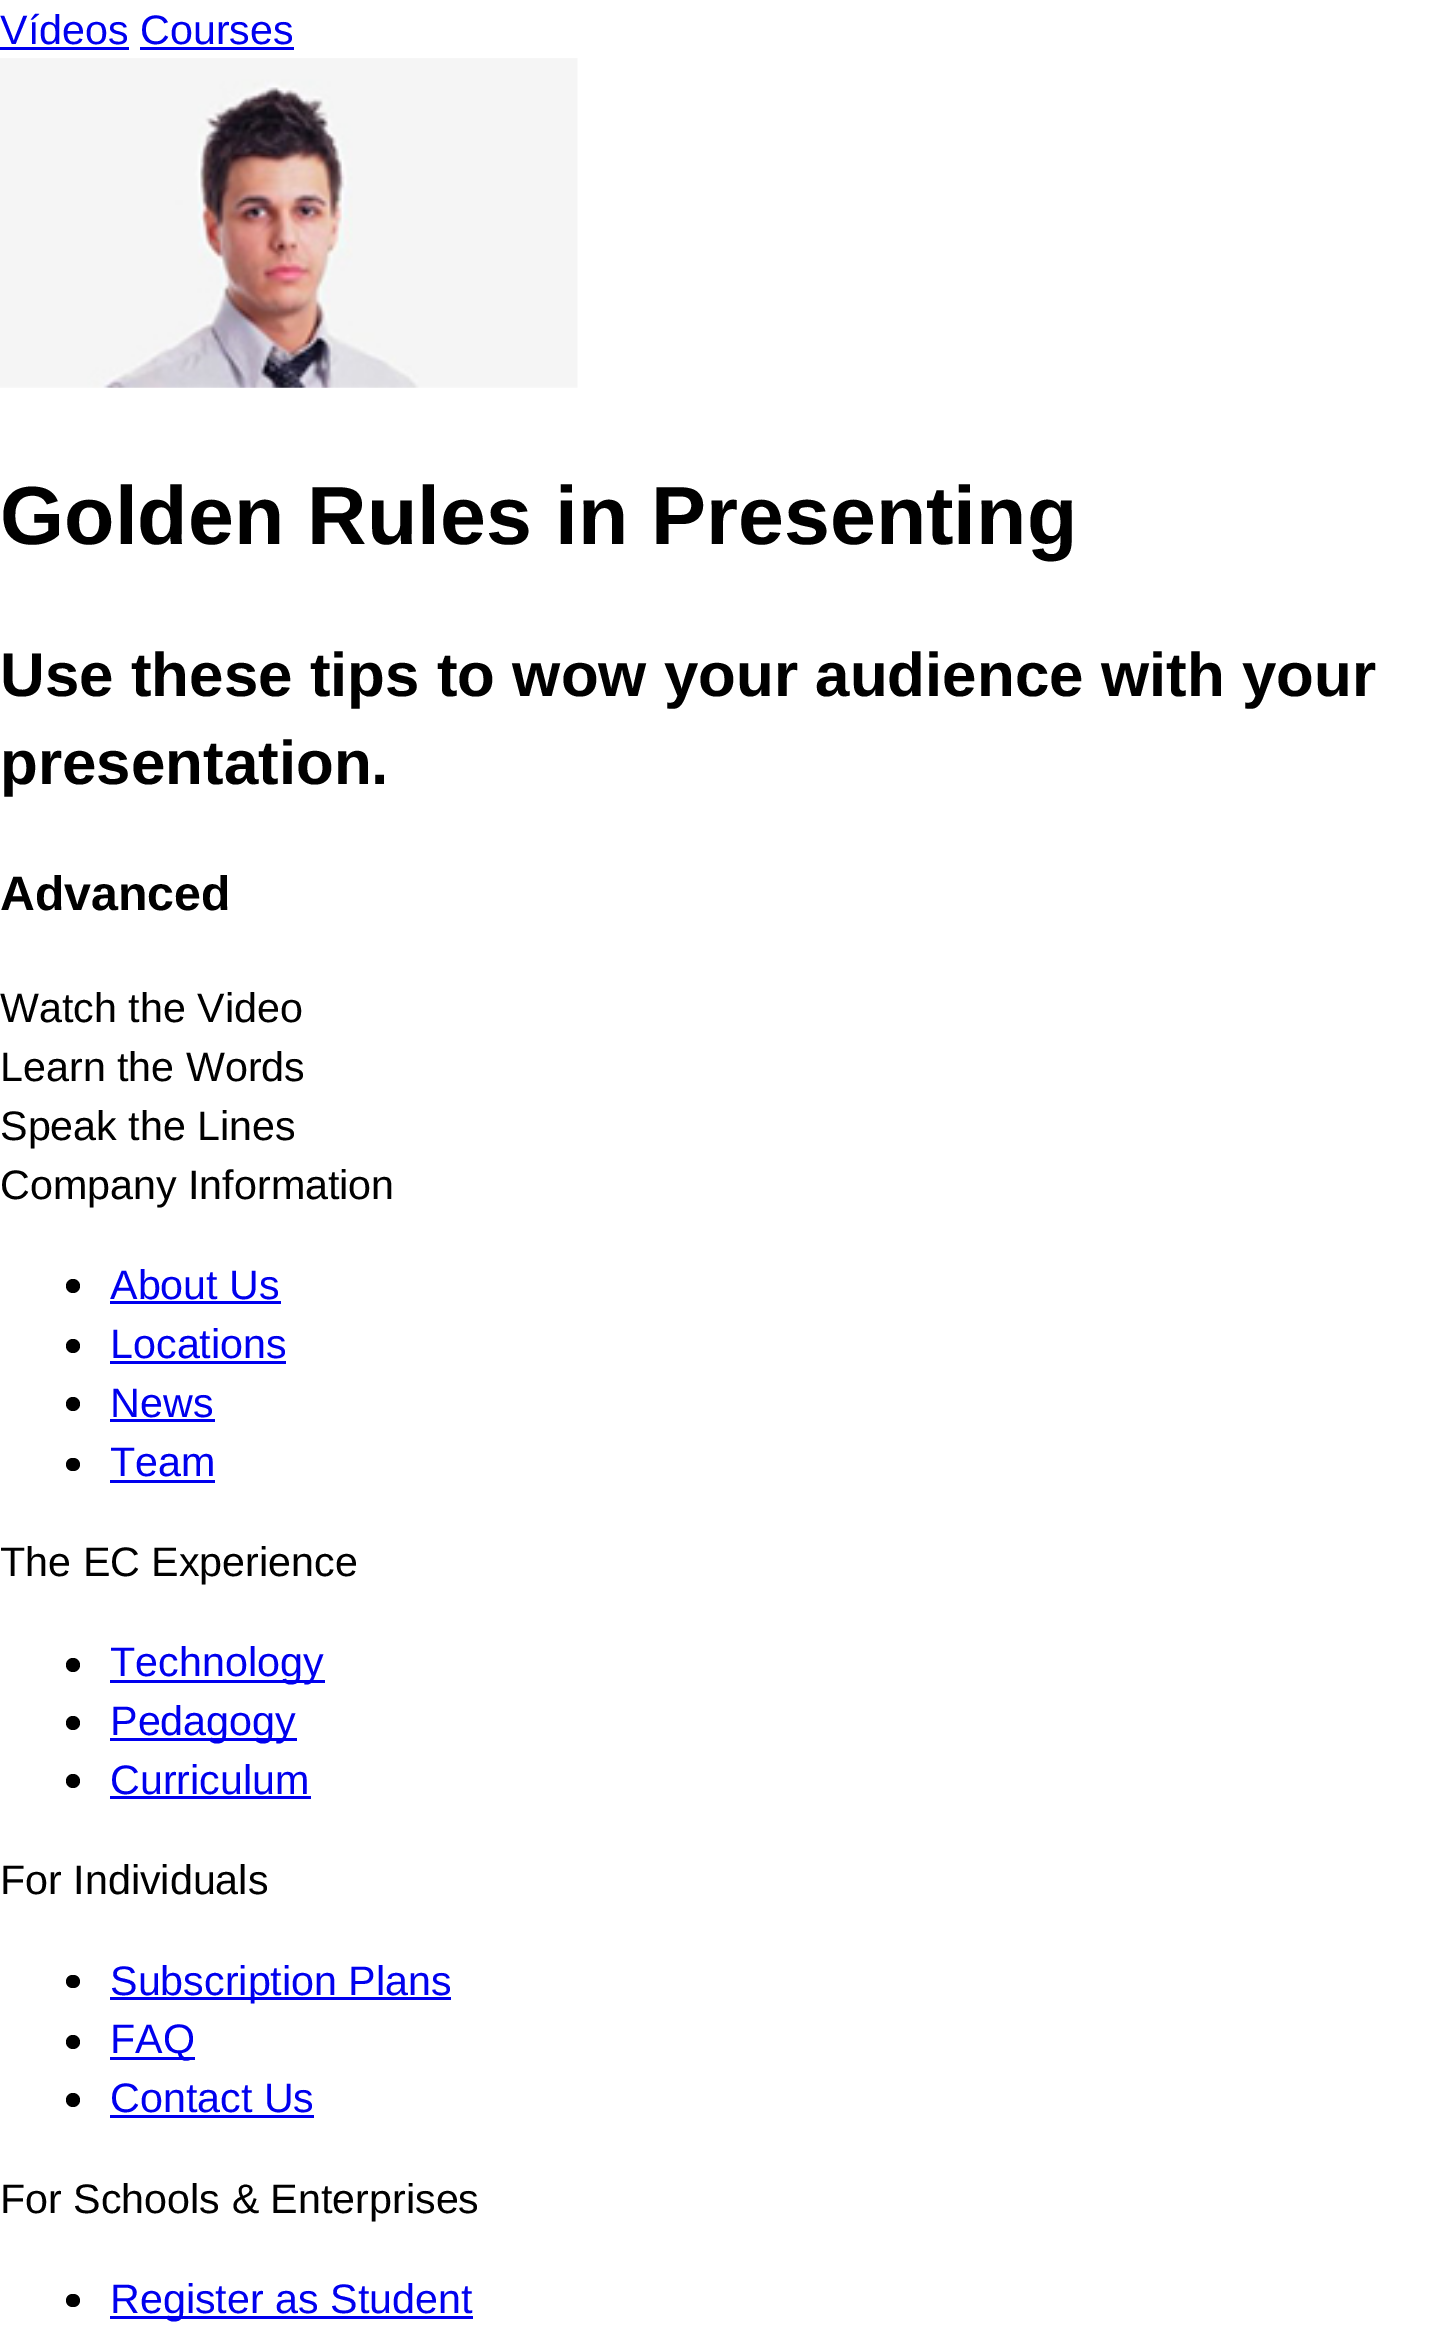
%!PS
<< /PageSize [1453 2325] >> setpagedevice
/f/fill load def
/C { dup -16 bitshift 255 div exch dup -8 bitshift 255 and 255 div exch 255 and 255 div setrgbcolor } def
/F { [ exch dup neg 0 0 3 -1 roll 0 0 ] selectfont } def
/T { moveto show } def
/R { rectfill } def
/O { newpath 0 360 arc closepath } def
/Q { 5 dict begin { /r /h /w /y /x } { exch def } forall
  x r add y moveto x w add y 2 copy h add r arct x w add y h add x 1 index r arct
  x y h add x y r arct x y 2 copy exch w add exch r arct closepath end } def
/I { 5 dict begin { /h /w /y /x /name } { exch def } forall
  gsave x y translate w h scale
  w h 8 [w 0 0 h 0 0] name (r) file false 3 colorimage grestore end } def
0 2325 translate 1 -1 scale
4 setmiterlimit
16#FFFFFF C
0 0 1453 2325 R
/LiberationSans-Regular 41.25 F
16#0000EE C
(Vídeos Courses) 0 44 T
0 47 129 3 R
140 47 154 3 R
(1.rgb) 0 58 578 330 I
/LiberationSans-Bold 82.5 F
16#000000 C
(Golden Rules in Presenting) 0 544 T
/LiberationSans-Bold 61.9 F
(Use these tips to wow your audience with your) 0 696 T
(presentation.) 0 784 T
/LiberationSans-Bold 48.25 F
(Advanced) 0 910 T
/LiberationSans-Regular 41.25 F
(Watch the Video) 0 1022 T
(Learn the Words) 0 1081 T
(Speak the Lines) 0 1140 T
(Company Information) 0 1199 T
73 1286 7 O f
16#0000EE C
(About Us) 110 1299 T
110 1301 171 3 R
16#000000 C
73 1346 7 O f
16#0000EE C
(Locations) 110 1358 T
110 1361 176 3 R
16#000000 C
73 1404 7 O f
16#0000EE C
(News) 110 1417 T
110 1419 105 3 R
16#000000 C
66 1458 14 13 6.5 Q f
16#0000EE C
(Team) 110 1476 T
110 1480 105 3 R
16#000000 C
(The EC Experience) 0 1576 T
73 1665 7 O f
16#0000EE C
110 1680 215 3 R
(Technology) 110 1676 T
16#000000 C
73 1723 7 O f
16#0000EE C
110 1738 187 3 R
(Pedagogy) 110 1735 T
16#000000 C
73 1781 7 O f
16#0000EE C
(Curriculum) 110 1794 T
110 1796 201 3 R
16#000000 C
(For Individuals) 0 1894 T
66 1975 14 13 6.5 Q f
16#0000EE C
110 1997 341 3 R
(Subscription Plans) 110 1995 T
16#000000 C
73 2042 7 O f
16#0000EE C
110 2057 85 3 R
(FAQ) 110 2053 T
16#000000 C
73 2100 7 O f
16#0000EE C
(Contact Us) 110 2112 T
110 2115 204 3 R
16#000000 C
(For Schools & Enterprises) 0 2213 T
66 2294 14 13 6.5 Q f
16#0000EE C
110 2316 363 3 R
(Register as Student) 110 2313 T
showpage
